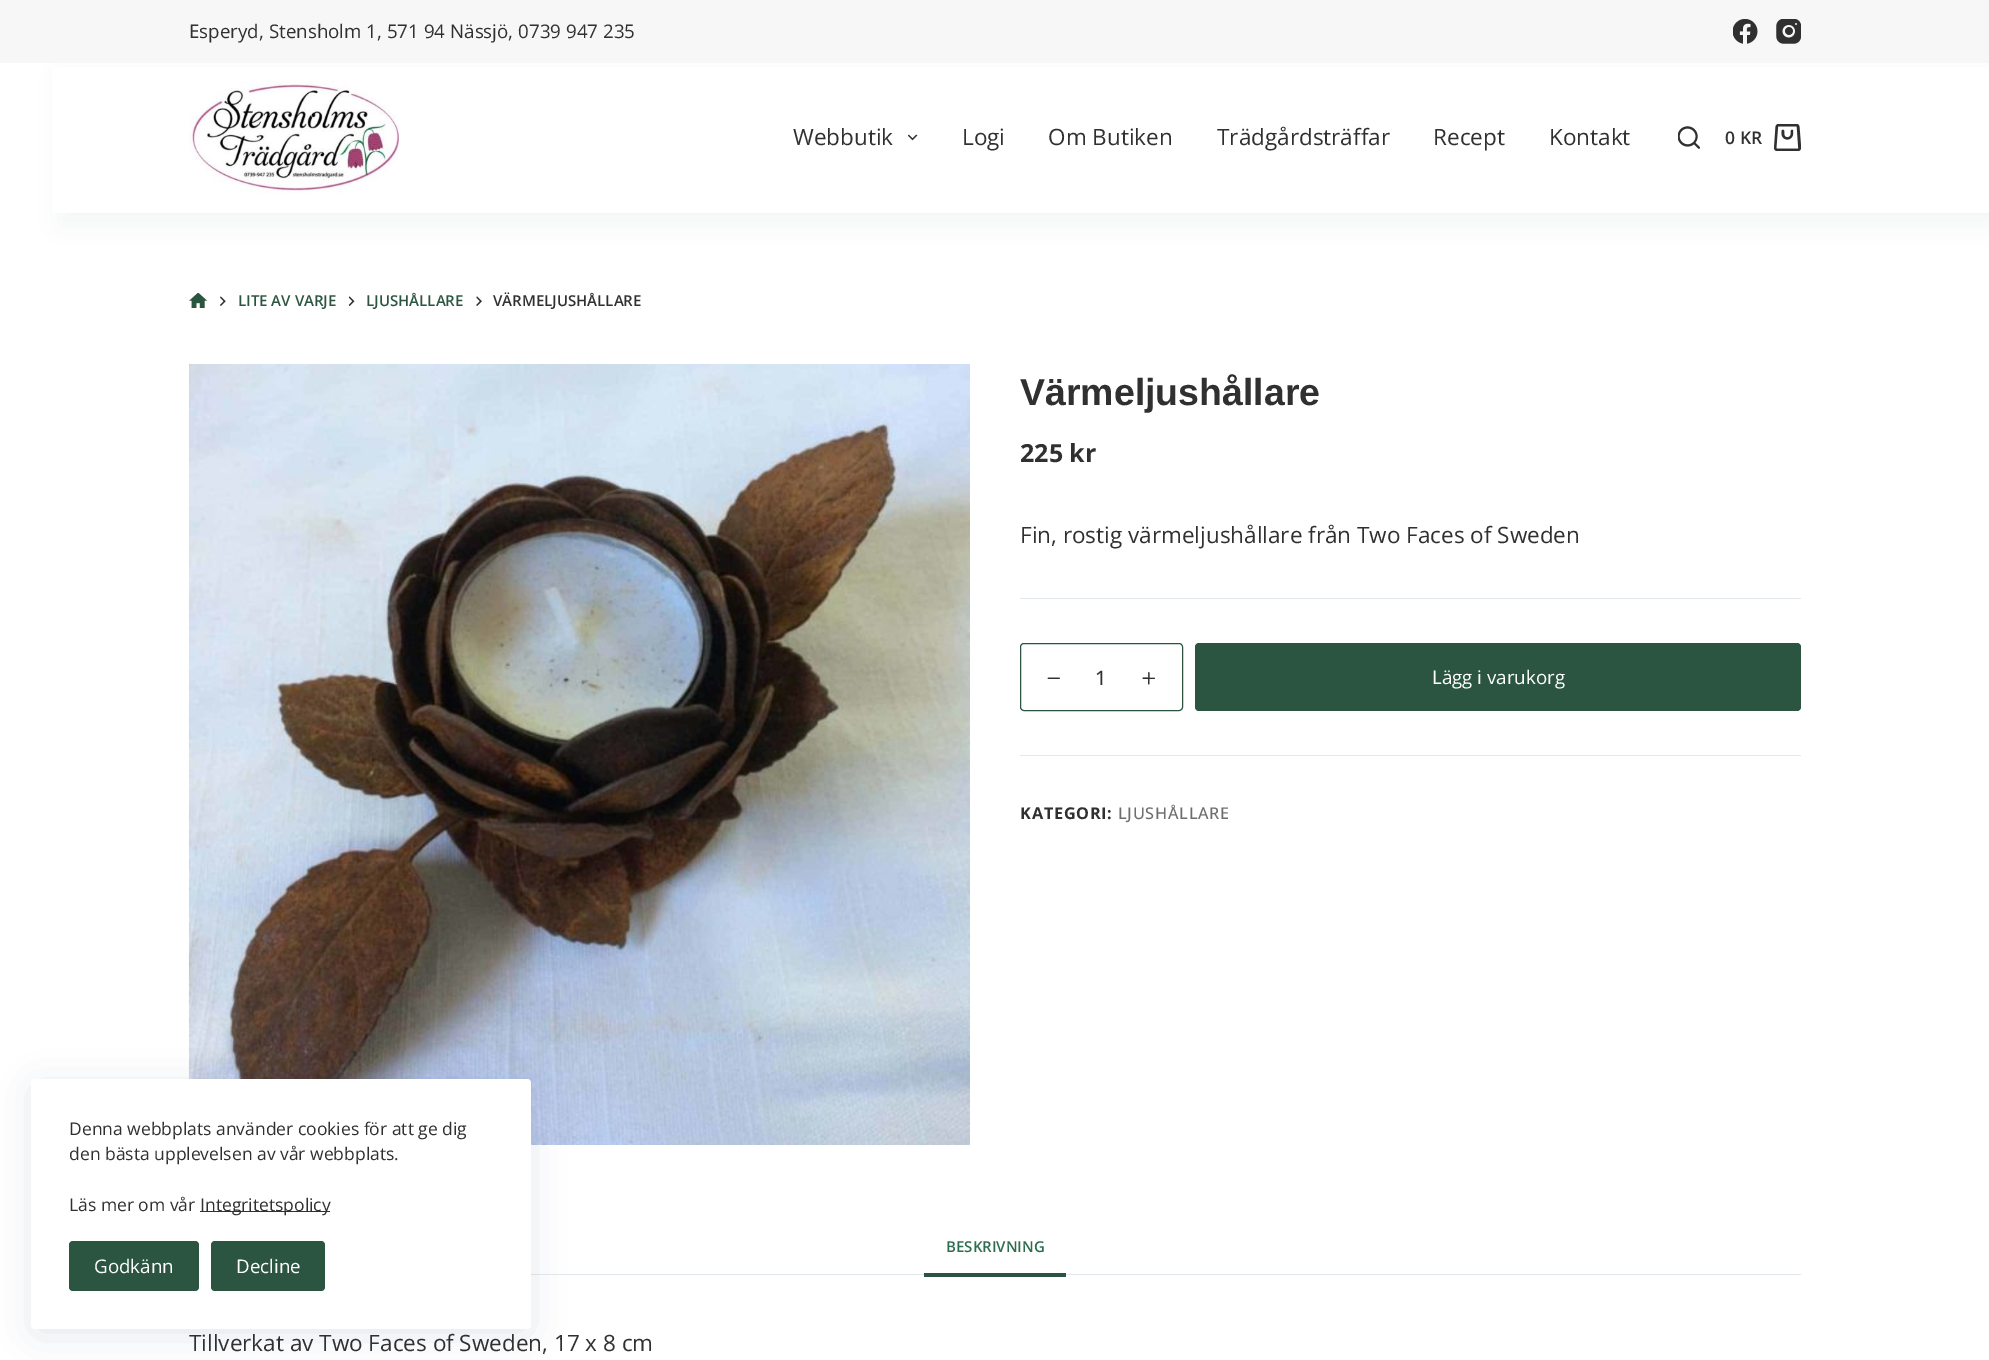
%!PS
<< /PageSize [1989 1360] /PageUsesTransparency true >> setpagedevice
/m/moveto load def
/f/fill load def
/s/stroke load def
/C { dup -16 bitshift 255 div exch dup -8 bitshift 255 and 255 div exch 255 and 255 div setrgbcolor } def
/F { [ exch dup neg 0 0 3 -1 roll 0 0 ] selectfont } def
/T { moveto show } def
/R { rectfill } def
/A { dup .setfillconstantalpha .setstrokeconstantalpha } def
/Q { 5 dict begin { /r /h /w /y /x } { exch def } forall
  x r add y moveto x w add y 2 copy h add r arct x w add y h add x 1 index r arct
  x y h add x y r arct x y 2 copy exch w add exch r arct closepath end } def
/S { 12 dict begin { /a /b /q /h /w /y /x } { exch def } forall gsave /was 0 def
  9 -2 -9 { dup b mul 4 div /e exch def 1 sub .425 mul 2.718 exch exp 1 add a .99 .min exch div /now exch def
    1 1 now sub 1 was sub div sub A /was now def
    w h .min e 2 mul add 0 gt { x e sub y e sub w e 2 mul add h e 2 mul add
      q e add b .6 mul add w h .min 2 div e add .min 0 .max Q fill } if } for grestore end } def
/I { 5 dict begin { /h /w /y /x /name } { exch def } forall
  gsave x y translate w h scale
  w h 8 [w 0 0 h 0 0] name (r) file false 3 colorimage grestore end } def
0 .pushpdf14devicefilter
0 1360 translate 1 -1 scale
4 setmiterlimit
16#FFFFFF C
0 0 1989 1360 R
16#2C3E50 C
60 75 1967 150 0 12.5 .05 S
16#F7F7F7 C
0 0 1989 63 R
/OpenSans-Regular 18.75 F
16#303030 C
(Esperyd, Stensholm 1, 571 94 Nässjö, 0739 947 235) 189 38 T
(1.rgb) 1733 19 25 25 I
(2.rgb) 1776 19 25 25 I
16#FFFFFF C
52 67 1937 146 R
(3.rgb) 189 81 210 112 I
/OpenSans-Regular 22.5 F
16#303030 C
(Webbutik) 793 145 T
(4.rgb) 908 134 10 7 I
(Logi) 962 145 T
(Om Butiken) 1048 145 T
(Trädgårdsträffar) 1217 145 T
(Recept) 1433 145 T
(Kontakt) 1549 145 T
(5.rgb) 1678 126 22 23 I
/OpenSans-SemiBold 17.5 F
(0 KR) 1725 144 T
(6.rgb) 1774 124 27 27 I
(7.rgb) 189 293 19 15 I
(8.rgb) 220 296 6 10 I
/OpenSans-SemiBold 15 F
16#2B5540 C
(LITE AV VARJE) 238 306 T
(9.rgb) 348 296 7 10 I
(LJUSHÅLLARE) 366 306 T
(10.rgb) 476 296 6 10 I
16#303030 C
(VÄRMELJUSHÅLLARE) 493 306 T
(11.rgb) 188 364 782 781 I
/LiberationSans-Bold 37.5 F
(Värmeljushållare) 1020 405 T
/OpenSans-Bold 25 F
(225 kr) 1020 462 T
/OpenSans-Regular 22.5 F
(Fin, rostig värmeljushållare från Two Faces of Sweden) 1020 543 T
16#E3E8ED C
1020 598 781 1 R
16#2B5540 C
1020.5 643.5 162 67 3.5 Q s
(12.rgb) 1047 677 13 2 I
/OpenSans-Medium 20 F
16#303030 C
(1) 1095 685 T
(13.rgb) 1142 672 13 13 I
16#2B5540 C
1195 643 606 68 4 Q f
/OpenSans-Regular 18.75 F
16#FFFFFF C
(Lägg i varukorg) 1432 684 T
16#E3E8ED C
1020 755 781 1 R
/OpenSans-Bold 16.25 F
16#303030 C
1020 819 m .75 0 (KATEGORI:) ashow
/OpenSans-Medium 16.25 F
16#6E6E6E C
1118 819 m .75 0 (LJUSHÅLLARE) ashow
16#E3E8ED C
531 1274 1270 1 R
/OpenSans-SemiBold 15 F
16#2C6E4D C
(BESKRIVNING) 946 1252 T
16#2B5540 C
924 1273 142 4 R
/OpenSans-Regular 22.5 F
16#303030 C
(Tillverkat av Two Faces of Sweden, 17 x 8 cm) 189 1351 T
16#223865 C
38 1091 487 238 0 19 .15 S
16#FFFFFF C
31 1079 500 250 4 Q f
/OpenSans-Regular 17.5 F
16#303030 C
(Denna webbplats använder cookies för att ge dig) 69 1135 T
(den bästa upplevelsen av vår webbplats.) 69 1160 T
(Läs mer om vår) 69 1211 T
200 1211 130 1 R
(Integritetspolicy) 200 1211 T
16#2B5540 C
69 1241 130 50 4 Q f
/OpenSans-Regular 18.75 F
16#FFFFFF C
(Godkänn) 94 1273 T
16#2B5540 C
211 1241 114 50 4 Q f
16#FFFFFF C
(Decline) 236 1273 T
.poppdf14devicefilter showpage
